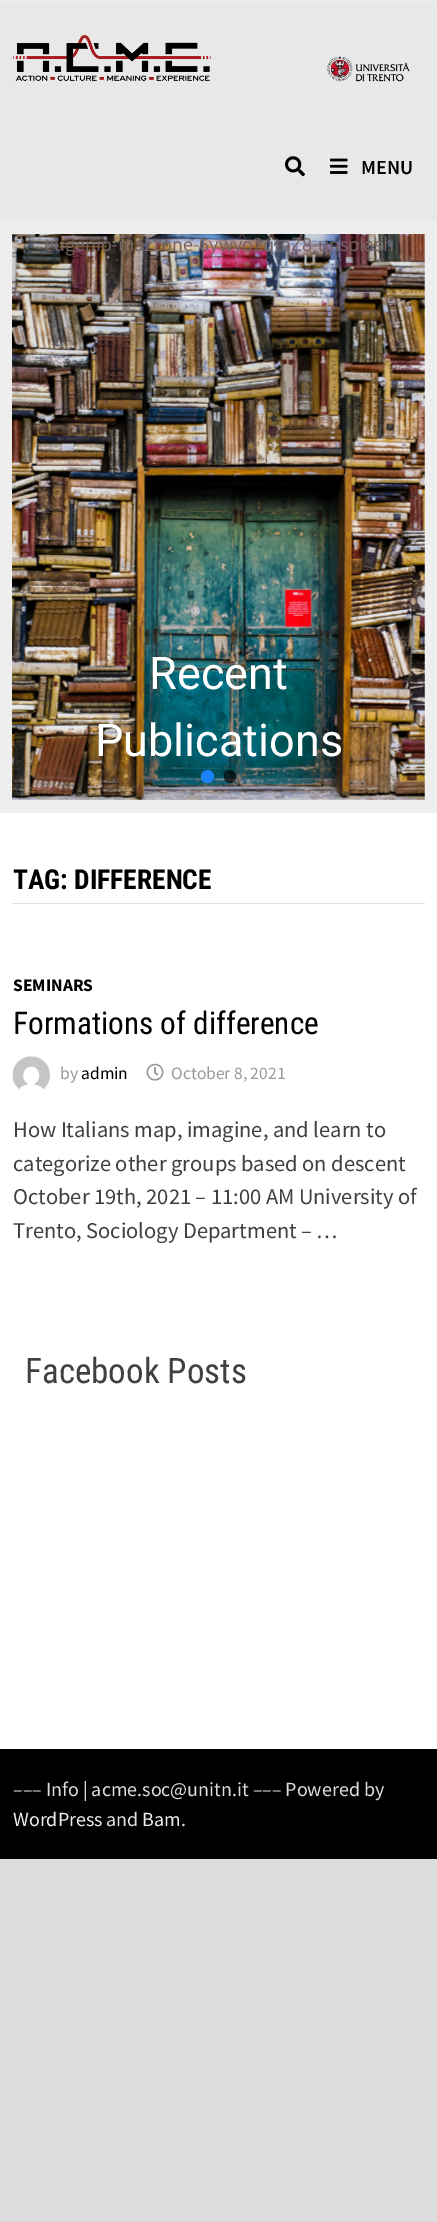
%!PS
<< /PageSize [437 2222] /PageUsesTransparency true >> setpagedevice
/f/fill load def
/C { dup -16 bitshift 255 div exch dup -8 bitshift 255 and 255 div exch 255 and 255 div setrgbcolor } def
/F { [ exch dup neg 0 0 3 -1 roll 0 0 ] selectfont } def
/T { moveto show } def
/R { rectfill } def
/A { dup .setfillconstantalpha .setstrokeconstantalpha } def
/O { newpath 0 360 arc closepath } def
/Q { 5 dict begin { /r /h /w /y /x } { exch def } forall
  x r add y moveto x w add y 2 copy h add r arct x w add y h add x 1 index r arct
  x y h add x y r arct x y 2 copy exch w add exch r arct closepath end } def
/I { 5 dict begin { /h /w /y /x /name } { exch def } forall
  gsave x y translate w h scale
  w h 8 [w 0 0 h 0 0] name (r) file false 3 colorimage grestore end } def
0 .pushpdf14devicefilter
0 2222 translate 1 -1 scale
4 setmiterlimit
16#DDDDDD C
0 0 437 2222 R
16#FFFFFF C
0 813 437 936 R
16#EEEEEE C
0 0 437 1 R
16#E8E8E8 C
0 1 437 220 R
(1.rgb) 13 35 397 47 I
(2.rgb) 285 156 20 21 I
(3.rgb) 330 158 18 16 I
/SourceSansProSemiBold-SemiBold 20 F
16#000000 C
(MENU) 361 174 T
16#EEEEEE C
0 221 437 592 R
(4.rgb) 12 234 413 566 I
/SourceSansPro-Regular 20 F
16#776363 C
(eugenio-mazzone-6ywyo2qtaZ8-unsplash) 44 251 T
/Roboto-Regular 45 F
16#FFFFFF C
(Recent) 149 689 T
(Publications) 95 756 T
16#1D81F9 C
207.5 776.5 6.5 O f
0.67 A
16#000000 C
224 770 12 13 6 Q f
1 A
16#DDDDDD C
13 903 412 1 R
/RobotoCondensed-Bold 27.5 F
16#000000 C
(TAG: DIFFERENCE) 13 889 T
/SourceSansPro-Bold 17.5 F
(SEMINARS) 13 991 T
/RobotoCondensed-Regular 31.25 F
(Formations of difference) 13 1034 T
(5.rgb) 12 1056 38 34 I
/SourceSansPro-Regular 17.5 F
16#999999 C
(by) 60 1079 T
16#000000 C
(admin) 81 1079 T
(6.rgb) 146 1063 18 18 I
16#999999 C
(October 8, 2021) 171 1079 T
/SourceSansPro-Regular 22.5 F
16#404040 C
(How Italians map, imagine, and learn to) 13 1137 T
(categorize other groups based on descent) 13 1171 T
(October 19th, 2021 – 11:00 AM University of) 13 1204 T
(Trento, Sociology Department – …) 13 1238 T
/RobotoCondensed-Regular 35 F
(Facebook Posts) 25 1383 T
16#000000 C
0 1749 437 110 R
/SourceSansPro-Regular 20 F
16#DDDDDD C
(––– Info | acme.soc@unitn.it ––– Powered by) 13 1796 T
16#EEEEEE C
(WordPress) 13 1826 T
16#DDDDDD C
(and) 106 1826 T
16#EEEEEE C
(Bam) 142 1826 T
16#DDDDDD C
(.) 181 1826 T
.poppdf14devicefilter showpage
